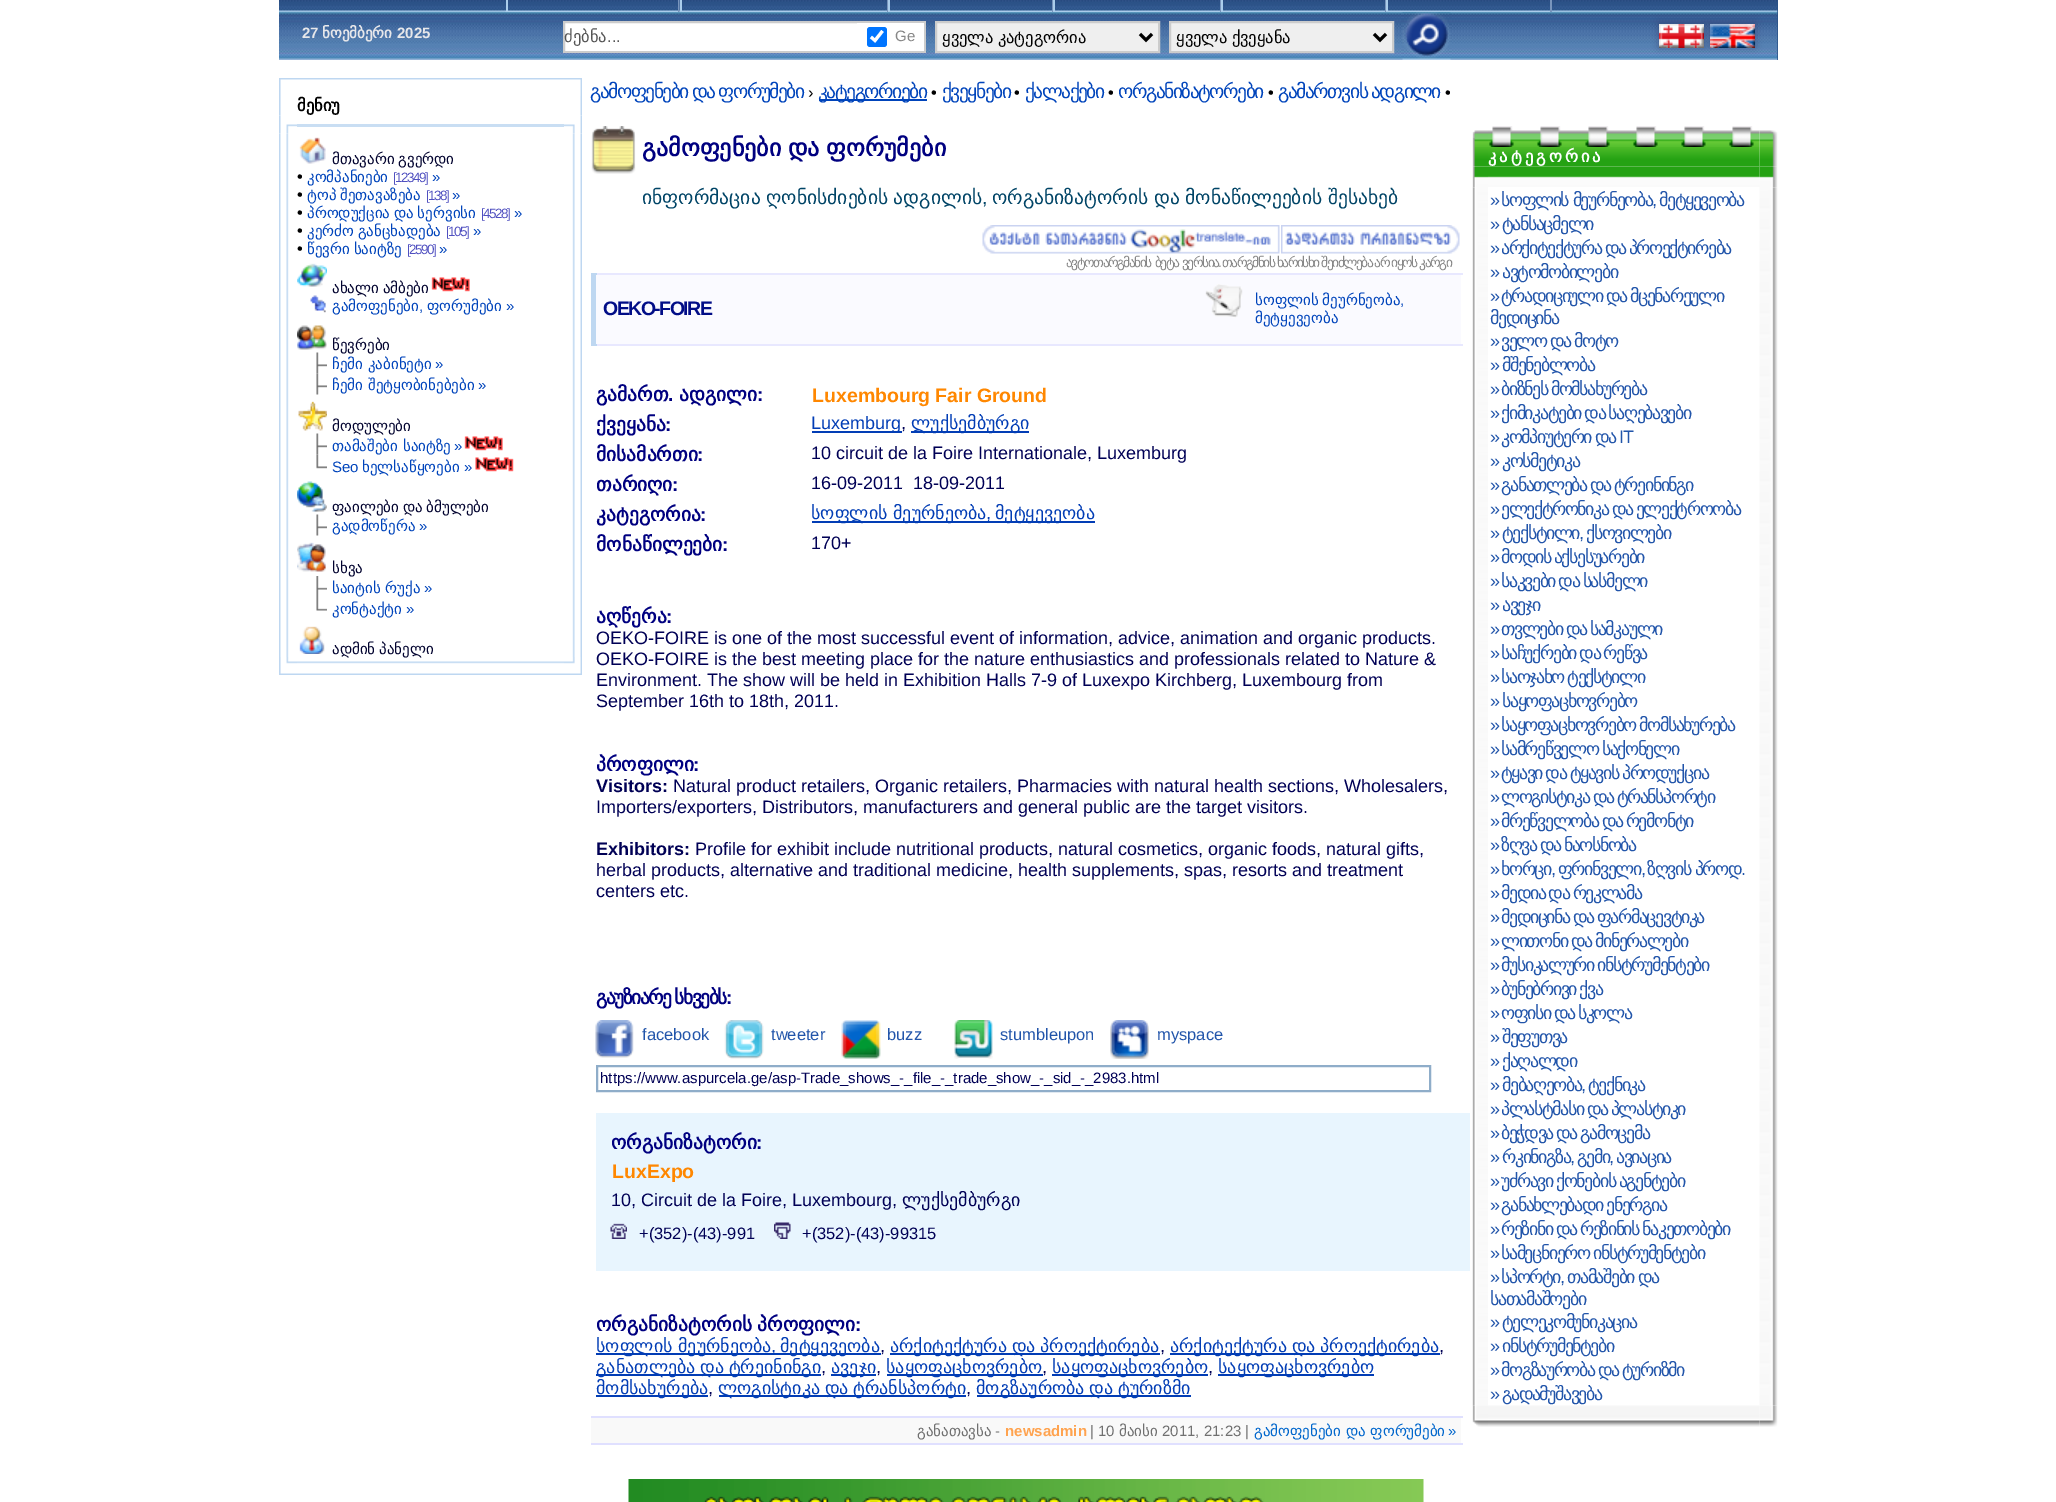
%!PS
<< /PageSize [2056 1502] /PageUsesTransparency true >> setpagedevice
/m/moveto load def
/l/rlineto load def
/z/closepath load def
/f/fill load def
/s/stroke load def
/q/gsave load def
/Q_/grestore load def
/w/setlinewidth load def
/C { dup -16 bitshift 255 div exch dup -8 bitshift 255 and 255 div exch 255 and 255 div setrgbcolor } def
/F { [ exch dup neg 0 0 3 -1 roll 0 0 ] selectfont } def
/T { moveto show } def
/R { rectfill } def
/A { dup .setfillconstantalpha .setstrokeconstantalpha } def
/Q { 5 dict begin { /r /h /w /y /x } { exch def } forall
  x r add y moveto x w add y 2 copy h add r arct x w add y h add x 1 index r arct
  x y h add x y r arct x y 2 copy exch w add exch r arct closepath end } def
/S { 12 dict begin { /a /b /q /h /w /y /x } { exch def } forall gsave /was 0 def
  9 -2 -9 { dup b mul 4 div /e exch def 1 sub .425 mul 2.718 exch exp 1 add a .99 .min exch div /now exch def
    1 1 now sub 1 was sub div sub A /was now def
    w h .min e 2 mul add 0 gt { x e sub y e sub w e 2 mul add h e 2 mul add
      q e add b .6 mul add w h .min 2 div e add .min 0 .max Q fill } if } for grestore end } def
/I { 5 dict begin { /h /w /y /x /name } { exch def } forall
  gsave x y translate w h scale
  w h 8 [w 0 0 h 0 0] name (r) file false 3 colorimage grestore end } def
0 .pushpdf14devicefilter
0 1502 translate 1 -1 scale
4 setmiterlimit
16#FFFFFF C
0 0 2056 1502 R
16#285086 C
1777 0 1 60 R
(10.rgb) 279 0 1499 60 I
(1.rgb) 505 0 173 12 I
16#7995BC C
678 0 2 12 R
16#ABCDEB C
506 0 2 12 R
(2.rgb) 679 0 208 12 I
16#7995BC C
887 0 1 12 R
16#ABCDEB C
680 0 2 12 R
(3.rgb) 890 0 162 12 I
16#7995BC C
1052 0 1 12 R
16#ABCDEB C
888 0 2 12 R
(4.rgb) 1055 0 165 12 I
16#7995BC C
1220 0 1 12 R
16#ABCDEB C
1053 0 2 12 R
(5.rgb) 1223 0 162 12 I
16#7995BC C
1385 0 1 12 R
16#ABCDEB C
1221 0 2 12 R
(6.rgb) 1388 0 162 12 I
16#7995BC C
1550 0 2 12 R
16#ABCDEB C
1386 0 2 12 R
/LiberationSans-Bold 15 F
16#E7E7EA C
(27) 302 38 T
/DejaVuSans-Bold 15 F
(ნოემბერი) 322 38 T
/LiberationSans-Bold 15 F
(2025) 397 38 T
16#FFFFFF C
565 23 359 28 R
16#CCCCCC C
857 21 69 2 R
924 21 2 32 R
857 51 69 2 R
q
563 21 294 32 rectclip
2 w
564 22 295 30 rectstroke
Q_
/DejaVuSans-Regular 16.5 F
16#555555 C
(ძებნა) 564 42 T
/LiberationSans-Regular 16.5 F
(...) 607 42 T
16#0075FF C
867 27 20 20 3 Q f
16#FFFFFF C
3.1 w
871 37 m 4 3.5 l 7.5 -9.5 l s
/LiberationSans-Regular 15 F
16#878787 C
(Ge) 895 41 T
16#EFEFEF C
936 22 m 223 0 l 0 30 l -223 0 l z q f Q_
16#CCCCCC C
2 w
s
16#000000 C
3 w
1140 34 m 6 6 l 6 -6 l s
/DejaVuSans-Regular 16.5 F
942 43 m -1 0 32 (ყველა კატეგორია) widthshow
16#EFEFEF C
1170 22 m 223 0 l 0 30 l -223 0 l z q f Q_
16#CCCCCC C
2 w
s
16#000000 C
3 w
1374 34 m 6 6 l 6 -6 l s
1176 43 m -1 0 32 (ყველა ქვეყანა) widthshow
(7.rgb) 1402 12 49 48 I
16#323264 C
1710 23 45 24 0 4 .5 S
(9.rgb) 1710 24 45 24 I
1659 23 45 24 0 4 .5 S
(8.rgb) 1659 24 45 24 I
(11.rgb) 279 78 18 18 I
(12.rgb) 297 78 267 2 I
(13.rgb) 564 78 18 18 I
(14.rgb) 279 96 2 20 I
/DejaVuSans-Bold 16.5 F
16#000000 C
(მენიუ) 297 111 T
(15.rgb) 580 96 2 20 I
(18.rgb) 279 133 10 524 I
(16.rgb) 279 115 18 19 I
16#C9DEF3 C
297 124 267 3 R
(34.rgb) 572 133 10 524 I
(17.rgb) 564 115 18 19 I
(19.rgb) 299 137 27 27 I
/DejaVuSans-Regular 15 F
16#02032F C
332 164 m -1 0 32 (მთავარი გვერდი) widthshow
/LiberationSans-Regular 16.5 F
16#000000 C
(•) 297 182 T
/DejaVuSans-Regular 15 F
16#0044BB C
(კომპანიები) 307 182 T
/LiberationSans-Regular 13.5 F
16#5050C0 C
393 182 m -1.5 0 ([12349]) ashow
/LiberationSans-Regular 15 F
16#0044BB C
(») 432 182 T
/LiberationSans-Regular 16.5 F
16#000000 C
(•) 297 200 T
/DejaVuSans-Regular 15 F
16#0044BB C
307 200 m -1 0 32 (ტოპ შეთავაზება) widthshow
/LiberationSans-Regular 13.5 F
16#5050C0 C
426 200 m -1.5 0 ([138]) ashow
/LiberationSans-Regular 15 F
16#0044BB C
(») 452 200 T
/LiberationSans-Regular 16.5 F
16#000000 C
(•) 297 218 T
/DejaVuSans-Regular 15 F
16#0044BB C
307 218 m -1 0 32 (პროდუქცია და სერვისი) widthshow
/LiberationSans-Regular 13.5 F
16#5050C0 C
481 218 m -1.5 0 ([4528]) ashow
/LiberationSans-Regular 15 F
16#0044BB C
(») 514 218 T
/LiberationSans-Regular 16.5 F
16#000000 C
(•) 297 236 T
/DejaVuSans-Regular 15 F
16#0044BB C
307 236 m -1 0 32 (კერძო განცხადება) widthshow
/LiberationSans-Regular 13.5 F
16#5050C0 C
446 236 m -1.5 0 ([105]) ashow
/LiberationSans-Regular 15 F
16#0044BB C
(») 473 236 T
/LiberationSans-Regular 16.5 F
16#000000 C
(•) 297 254 T
/DejaVuSans-Regular 15 F
16#0044BB C
307 254 m -1 0 32 (წევრი საიტზე) widthshow
/LiberationSans-Regular 13.5 F
16#5050C0 C
407 254 m -1.5 0 ([2590]) ashow
/LiberationSans-Regular 15 F
16#0044BB C
(») 439 254 T
(20.rgb) 297 263 30 24 I
/DejaVuSans-Regular 15 F
16#02032F C
332 293 m -1 0 32 (ახალი ამბები) widthshow
(21.rgb) 431 277 39 15 I
(22.rgb) 310 295 16 18 I
16#0044BB C
(გამოფენები) 332 311 T
(ფორუმები) 427 311 T
/LiberationSans-Regular 15 F
(») 506 311 T
(,) 419 311 T
(23.rgb) 297 325 30 25 I
/DejaVuSans-Regular 15 F
16#02032F C
(წევრები) 332 350 T
(24.rgb) 316 352 11 22 I
16#0044BB C
(ჩემი კაბინეტი) 332 369 T
/LiberationSans-Regular 15 F
(») 435 369 T
(25.rgb) 316 373 11 22 I
/DejaVuSans-Regular 15 F
(ჩემი შეტყობინებები) 332 390 T
/LiberationSans-Regular 15 F
(») 478 390 T
(26.rgb) 298 401 29 30 I
/DejaVuSans-Regular 15 F
16#02032F C
(მოდულები) 332 431 T
(24.rgb) 316 433 11 22 I
16#0044BB C
(თამაშები საიტზე) 332 451 T
/LiberationSans-Regular 15 F
(») 454 451 T
(21.rgb) 464 436 39 15 I
(27.rgb) 316 454 11 15 I
(Seo) 332 472 T
/DejaVuSans-Regular 15 F
(ხელსაწყოები) 362 472 T
/LiberationSans-Regular 15 F
(») 464 472 T
(28.rgb) 475 457 39 15 I
(29.rgb) 297 481 30 31 I
/DejaVuSans-Regular 15 F
16#02032F C
332 512 m -1 0 32 (ფაილები და ბმულები) widthshow
(24.rgb) 316 514 11 22 I
16#0044BB C
(გადმოწერა) 332 531 T
/LiberationSans-Regular 15 F
(») 419 531 T
(30.rgb) 297 542 29 30 I
/DejaVuSans-Regular 15 F
16#02032F C
(სხვა) 332 573 T
(31.rgb) 316 576 11 21 I
16#0044BB C
(საიტის რუქა) 332 593 T
/LiberationSans-Regular 15 F
(») 424 593 T
(32.rgb) 316 597 11 14 I
/DejaVuSans-Regular 15 F
(კონტაქტი) 332 614 T
/LiberationSans-Regular 15 F
(») 406 614 T
(33.rgb) 299 626 26 28 I
/DejaVuSans-Regular 15 F
16#02032F C
332 654 m -1 0 32 (ადმინ პანელი) widthshow
(35.rgb) 279 657 18 18 I
(36.rgb) 297 661 267 14 I
(37.rgb) 564 657 18 18 I
/DejaVuSans-Regular 19.5 F
16#0044BB C
590 98 m -1 0 32 -1.5 0 (გამოფენები და ფორუმები) awidthshow
/LiberationSans-Regular 16.5 F
16#000000 C
(›) 808 98 T
16#0044BB C
819 99 108 2 R
/DejaVuSans-Regular 19.5 F
818 98 m -1.5 0 (კატეგორიები) ashow
/LiberationSans-Regular 16.5 F
16#000000 C
(•) 931 98 T
/DejaVuSans-Regular 19.5 F
16#0044BB C
942 98 m -1.5 0 (ქვეყნები) ashow
/LiberationSans-Regular 16.5 F
16#000000 C
(•) 1014 98 T
/DejaVuSans-Regular 19.5 F
16#0044BB C
1025 98 m -1.5 0 (ქალაქები) ashow
/LiberationSans-Regular 16.5 F
16#000000 C
(•) 1108 98 T
/DejaVuSans-Regular 19.5 F
16#0044BB C
1118 98 m -1.5 0 (ორგანიზატორები) ashow
/LiberationSans-Regular 16.5 F
16#000000 C
(•) 1268 98 T
/DejaVuSans-Regular 19.5 F
16#0044BB C
1278 98 m -1 0 32 -1.5 0 (გამართვის ადგილი) awidthshow
/LiberationSans-Regular 16.5 F
16#000000 C
(•) 1445 98 T
(38.rgb) 591 126 45 48 I
/DejaVuSans-Bold 24 F
16#000080 C
642 156 m -1 0 32 (გამოფენები და ფორუმები) widthshow
/DejaVuSans-Regular 19.5 F
16#004466 C
642 204 m -.5 0 32 (ინფორმაცია ღონისძიების ადგილის) widthshow
/LiberationSans-Regular 19.5 F
(,) 982 204 T
/DejaVuSans-Regular 19.5 F
992 204 m -.5 0 32 (ორგანიზატორის და მონაწილეების შესახებ) widthshow
(39.rgb) 982 225 298 29 I
(40.rgb) 1281 225 179 29 I
/DejaVuSans-Regular 13.5 F
16#878787 C
1066 267 m -1.5 0 (ავტოთარგმანის) ashow
1155 267 m -1.5 0 (ბეტა) ashow
1182 267 m -1.5 0 (ვერსია) ashow
/LiberationSans-Regular 13.5 F
1218 267 m -1.5 0 (.) ashow
/DejaVuSans-Regular 13.5 F
1222 267 m -.5 0 32 -1.5 0 (თარგმნის ხარისხი შეიძლება არ იყოს კარგი) awidthshow
16#BED7F1 C
591 275 5 70 R
16#E8E8FF C
596 273 867 2 R
16#BED7F1 C
591 273 6 2 R
16#E8E8FF C
596 344 867 2 R
16#BED7F1 C
591 344 6 2 R
16#FAFAFF C
596 275 865 69 R
/LiberationSans-Bold 19.5 F
16#010D87 C
603 315 m -1.5 0 (OEKO-FOIRE) ashow
(41.rgb) 1205 284 38 34 I
/DejaVuSans-Regular 15 F
16#0044BB C
1255 305 m -1 0 32 (სოფლის მეურნეობა) widthshow
/LiberationSans-Regular 15 F
(,) 1400 305 T
/DejaVuSans-Regular 15 F
(მეტყევეობა) 1255 323 T
/DejaVuSans-Bold 19.5 F
16#000080 C
(გამართ) 596 401 T
/LiberationSans-Bold 19.5 F
(.) 668 401 T
/DejaVuSans-Bold 19.5 F
(ადგილი) 679 401 T
/LiberationSans-Bold 19.5 F
(:) 757 401 T
16#FF8700 C
(Luxembourg Fair Ground) 812 402 T
/DejaVuSans-Bold 19.5 F
16#000080 C
(ქვეყანა) 596 431 T
/LiberationSans-Bold 19.5 F
(:) 665 431 T
16#023DB5 C
812 431 90 2 R
/LiberationSans-Regular 18 F
(Luxemburg) 811 429 T
16#000055 C
(,) 901 429 T
16#023DB5 C
911 431 118 2 R
/DejaVuSans-Regular 18 F
(ლუქსემბურგი) 911 429 T
/DejaVuSans-Bold 19.5 F
16#000080 C
(მისამართი) 596 461 T
/LiberationSans-Bold 19.5 F
(:) 697 461 T
/LiberationSans-Regular 18 F
16#000055 C
(10 circuit de la Foire Internationale, Luxemburg) 811 459 T
/DejaVuSans-Bold 19.5 F
16#000080 C
(თარიღი) 596 491 T
/LiberationSans-Bold 19.5 F
(:) 672 491 T
/LiberationSans-Regular 18 F
16#000055 C
(16-09-2011  18-09-2011) 811 489 T
/DejaVuSans-Bold 19.5 F
16#000080 C
(კატეგორია) 596 521 T
/LiberationSans-Bold 19.5 F
(:) 700 521 T
16#023DB5 C
812 521 283 2 R
/DejaVuSans-Regular 18 F
(სოფლის მეურნეობა) 811 519 T
/LiberationSans-Regular 18 F
(,) 986 519 T
/DejaVuSans-Regular 18 F
(მეტყევეობა) 995 519 T
/DejaVuSans-Bold 19.5 F
16#000080 C
(მონაწილეები) 596 551 T
/LiberationSans-Bold 19.5 F
(:) 722 551 T
/LiberationSans-Regular 18 F
16#000055 C
(170+) 811 549 T
/DejaVuSans-Bold 19.5 F
16#000080 C
(აღწერა) 596 623 T
/LiberationSans-Bold 19.5 F
(:) 666 623 T
/LiberationSans-Regular 18 F
16#000055 C
(OEKO-FOIRE is one of the most successful event of information, advice, animation and organic products.) 596 644 T
(OEKO-FOIRE is the best meeting place for the nature enthusiastics and professionals related to Nature &) 596 665 T
(Environment. The show will be held in Exhibition Halls 7-9 of Luxexpo Kirchberg, Luxembourg from) 596 686 T
(September 16th to 18th, 2011.) 596 707 T
/DejaVuSans-Bold 19.5 F
16#000080 C
(პროფილი) 596 771 T
/LiberationSans-Bold 19.5 F
(:) 693 771 T
/LiberationSans-Bold 18 F
16#000055 C
(Visitors:) 596 792 T
/LiberationSans-Regular 18 F
(Natural product retailers, Organic retailers, Pharmacies with natural health sections, Wholesalers,) 673 792 T
(Importers/exporters, Distributors, manufacturers and general public are the target visitors.) 596 813 T
/LiberationSans-Bold 18 F
(Exhibitors:) 596 855 T
/LiberationSans-Regular 18 F
(Profile for exhibit include nutritional products, natural cosmetics, organic foods, natural gifts,) 695 855 T
(herbal products, alternative and traditional medicine, health supplements, spas, resorts and treatment) 596 876 T
(centers etc.) 596 897 T
/DejaVuSans-Bold 19.5 F
16#000080 C
596 1004 m -1 0 32 -1.5 0 (გაუზიარე სხვებს) awidthshow
/LiberationSans-Bold 19.5 F
726 1004 m -1.5 0 (:) ashow
(42.rgb) 595 1020 39 38 I
/LiberationSans-Regular 16.5 F
16#2255AA C
(facebook) 642 1040 T
(43.rgb) 724 1020 40 39 I
(tweeter) 771 1040 T
(44.rgb) 841 1020 40 39 I
(buzz) 887 1040 T
(45.rgb) 954 1020 39 39 I
(stumbleupon) 1000 1040 T
(46.rgb) 1110 1020 39 39 I
(myspace) 1157 1040 T
16#8FADC9 C
2 w
597 1066 833 25 rectstroke
/LiberationSans-Regular 15 F
16#000055 C
(https://www.aspurcela.ge/asp-Trade_shows_-_file_-_trade_show_-_sid_-_2983.html) 600 1083 T
16#E8F5FE C
596 1113 874 158 R
/DejaVuSans-Bold 19.5 F
16#000080 C
(ორგანიზატორი) 611 1149 T
/LiberationSans-Bold 19.5 F
(:) 756 1149 T
16#FF8700 C
(LuxExpo) 612 1178 T
/LiberationSans-Regular 18 F
16#000055 C
(10, Circuit de la Foire, Luxembourg,) 611 1206 T
/DejaVuSans-Regular 18 F
(ლუქსემბურგი) 902 1206 T
(47.rgb) 610 1223 17 16 I
/LiberationSans-Regular 16.5 F
(+\(352\)-\(43\)-991) 639 1239 T
(48.rgb) 774 1222 17 17 I
(+\(352\)-\(43\)-99315) 802 1239 T
/DejaVuSans-Bold 19.5 F
16#000080 C
596 1331 m -1 0 32 (ორგანიზატორის პროფილი) widthshow
/LiberationSans-Bold 19.5 F
(:) 855 1331 T
16#023DB5 C
596 1353 285 2 R
/DejaVuSans-Regular 18 F
(სოფლის მეურნეობა) 596 1352 T
/LiberationSans-Regular 18 F
(,) 771 1352 T
/DejaVuSans-Regular 18 F
(მეტყევეობა) 780 1352 T
/LiberationSans-Regular 18 F
16#000055 C
(,) 880 1352 T
16#023DB5 C
890 1353 270 2 R
/DejaVuSans-Regular 18 F
890 1352 m -1 0 32 (არქიტექტურა და პროექტირება) widthshow
/LiberationSans-Regular 18 F
16#000055 C
(,) 1160 1352 T
16#023DB5 C
1170 1353 270 2 R
/DejaVuSans-Regular 18 F
1170 1352 m -1 0 32 (არქიტექტურა და პროექტირება) widthshow
/LiberationSans-Regular 18 F
16#000055 C
(,) 1439 1352 T
16#023DB5 C
596 1374 225 2 R
/DejaVuSans-Regular 18 F
596 1373 m -1 0 32 (განათლება და ტრეინინგი) widthshow
/LiberationSans-Regular 18 F
16#000055 C
(,) 821 1373 T
16#023DB5 C
831 1374 45 2 R
/DejaVuSans-Regular 18 F
(ავეჯი) 831 1373 T
/LiberationSans-Regular 18 F
16#000055 C
(,) 876 1373 T
16#023DB5 C
887 1374 156 2 R
/DejaVuSans-Regular 18 F
(საყოფაცხოვრებო) 886 1373 T
/LiberationSans-Regular 18 F
16#000055 C
(,) 1042 1373 T
16#023DB5 C
1052 1374 156 2 R
/DejaVuSans-Regular 18 F
(საყოფაცხოვრებო) 1052 1373 T
/LiberationSans-Regular 18 F
16#000055 C
(,) 1208 1373 T
16#023DB5 C
1218 1374 156 2 R
/DejaVuSans-Regular 18 F
(საყოფაცხოვრებო) 1218 1373 T
596 1395 112 2 R
(მომსახურება) 596 1394 T
/LiberationSans-Regular 18 F
16#000055 C
(,) 708 1394 T
16#023DB5 C
719 1395 247 2 R
/DejaVuSans-Regular 18 F
718 1394 m -1 0 32 (ლოგისტიკა და ტრანსპორტი) widthshow
/LiberationSans-Regular 18 F
16#000055 C
(,) 966 1394 T
16#023DB5 C
977 1395 214 2 R
/DejaVuSans-Regular 18 F
976 1394 m -1 0 32 (მოგზაურობა და ტურიზმი) widthshow
16#F9F9F9 C
591 1418 870 25 R
16#E0E0FF C
591 1416 872 2 R
591 1443 872 2 R
/DejaVuSans-Regular 15 F
16#707070 C
(განათავსა) 917 1436 T
/LiberationSans-Regular 15 F
(-) 995 1436 T
/LiberationSans-Bold 15 F
16#FFA34F C
(newsadmin) 1005 1436 T
/LiberationSans-Regular 15 F
16#707070 C
(| 10) 1090 1436 T
/DejaVuSans-Regular 15 F
(მაისი) 1119 1436 T
/LiberationSans-Regular 15 F
(2011, 21:23 |) 1162 1436 T
/DejaVuSans-Regular 15 F
16#0066CC C
(გამოფენები და ფორუმები) 1254 1436 T
/LiberationSans-Regular 15 F
(») 1448 1436 T
(49.rgb) 628 1479 796 23 I
(50.rgb) 1472 130 16 17 I
(51.rgb) 1488 126 272 21 I
(52.rgb) 1759 130 19 17 I
(53.rgb) 1472 147 16 20 I
(54.rgb) 1488 147 272 20 I
/DejaVuSans-Bold 16.5 F
16#FFFFFF C
1488 162 m 3 0 (კატეგორია) ashow
(55.rgb) 1759 147 19 20 I
(59.rgb) 1472 187 16 1219 I
(56.rgb) 1472 166 16 22 I
(57.rgb) 1488 166 272 21 I
(60.rgb) 1759 187 19 1219 I
(58.rgb) 1759 166 19 22 I
/LiberationSans-Regular 18 F
16#2255AA C
1490 206 m -1.5 0 (») ashow
/DejaVuSans-Regular 18 F
1501 206 m -1.5 0 (სოფლის მეურნეობა) ashow
1659 206 m -1.5 0 (მეტყევეობა) ashow
/LiberationSans-Regular 18 F
1652 206 m -1.5 0 (,) ashow
1490 230 m -1.5 0 (») ashow
/DejaVuSans-Regular 18 F
1502 230 m -1.5 0 (ტანსაცმელი) ashow
/LiberationSans-Regular 18 F
1490 254 m -1.5 0 (») ashow
/DejaVuSans-Regular 18 F
1501 254 m -1 0 32 -1.5 0 (არქიტექტურა და პროექტირება) awidthshow
/LiberationSans-Regular 18 F
1490 278 m -1.5 0 (») ashow
/DejaVuSans-Regular 18 F
1502 278 m -1.5 0 (ავტომობილები) ashow
/LiberationSans-Regular 18 F
1490 302 m -1.5 0 (») ashow
/DejaVuSans-Regular 18 F
1501 302 m -1 0 32 -1.5 0 (ტრადიციული და მცენარეული) awidthshow
1490 324 m -1.5 0 (მედიცინა) ashow
/LiberationSans-Regular 18 F
1490 347 m -1.5 0 (») ashow
/DejaVuSans-Regular 18 F
1501 347 m -1 0 32 -1.5 0 (ველო და მოტო) awidthshow
/LiberationSans-Regular 18 F
1490 371 m -1.5 0 (») ashow
/DejaVuSans-Regular 18 F
1502 371 m -1.5 0 (მშენებლობა) ashow
/LiberationSans-Regular 18 F
1490 395 m -1.5 0 (») ashow
/DejaVuSans-Regular 18 F
1501 395 m -1 0 32 -1.5 0 (ბიზნეს მომსახურება) awidthshow
/LiberationSans-Regular 18 F
1490 419 m -1.5 0 (») ashow
/DejaVuSans-Regular 18 F
1501 419 m -1 0 32 -1.5 0 (ქიმიკატები და საღებავები) awidthshow
/LiberationSans-Regular 18 F
1490 443 m -1.5 0 (») ashow
/DejaVuSans-Regular 18 F
1501 443 m -.5 0 32 -1.5 0 (კომპიუტერი და) awidthshow
/LiberationSans-Regular 18 F
1619 443 m -1.5 0 (IT) ashow
1490 467 m -1.5 0 (») ashow
/DejaVuSans-Regular 18 F
1502 467 m -1.5 0 (კოსმეტიკა) ashow
/LiberationSans-Regular 18 F
1490 491 m -1.5 0 (») ashow
/DejaVuSans-Regular 18 F
1501 491 m -1 0 32 -1.5 0 (განათლება და ტრეინინგი) awidthshow
/LiberationSans-Regular 18 F
1490 515 m -1.5 0 (») ashow
/DejaVuSans-Regular 18 F
1501 515 m -1 0 32 -1.5 0 (ელექტრონიკა და ელექტროობა) awidthshow
/LiberationSans-Regular 18 F
1490 539 m -1.5 0 (») ashow
/DejaVuSans-Regular 18 F
1502 539 m -1.5 0 (ტექსტილი) ashow
1586 539 m -1.5 0 (ქსოვილები) ashow
/LiberationSans-Regular 18 F
1579 539 m -1.5 0 (,) ashow
1490 563 m -1.5 0 (») ashow
/DejaVuSans-Regular 18 F
1501 563 m -1 0 32 -1.5 0 (მოდის აქსესუარები) awidthshow
/LiberationSans-Regular 18 F
1490 587 m -1.5 0 (») ashow
/DejaVuSans-Regular 18 F
1501 587 m -1 0 32 -1.5 0 (საკვები და სასმელი) awidthshow
/LiberationSans-Regular 18 F
1490 611 m -1.5 0 (») ashow
/DejaVuSans-Regular 18 F
1502 611 m -1.5 0 (ავეჯი) ashow
/LiberationSans-Regular 18 F
1490 635 m -1.5 0 (») ashow
/DejaVuSans-Regular 18 F
1501 635 m -1 0 32 -1.5 0 (თვლები და სამკაული) awidthshow
/LiberationSans-Regular 18 F
1490 659 m -1.5 0 (») ashow
/DejaVuSans-Regular 18 F
1501 659 m -1 0 32 -1.5 0 (საჩუქრები და რეწვა) awidthshow
/LiberationSans-Regular 18 F
1490 683 m -1.5 0 (») ashow
/DejaVuSans-Regular 18 F
1501 683 m -1 0 32 -1.5 0 (საოჯახო ტექსტილი) awidthshow
/LiberationSans-Regular 18 F
1490 707 m -1.5 0 (») ashow
/DejaVuSans-Regular 18 F
1502 707 m -1.5 0 (საყოფაცხოვრებო) ashow
/LiberationSans-Regular 18 F
1490 731 m -1.5 0 (») ashow
/DejaVuSans-Regular 18 F
1501 731 m -1 0 32 -1.5 0 (საყოფაცხოვრებო მომსახურება) awidthshow
/LiberationSans-Regular 18 F
1490 755 m -1.5 0 (») ashow
/DejaVuSans-Regular 18 F
1501 755 m -1 0 32 -1.5 0 (სამრეწველო საქონელი) awidthshow
/LiberationSans-Regular 18 F
1490 779 m -1.5 0 (») ashow
/DejaVuSans-Regular 18 F
1501 779 m -1 0 32 -1.5 0 (ტყავი და ტყავის პროდუქცია) awidthshow
/LiberationSans-Regular 18 F
1490 803 m -1.5 0 (») ashow
/DejaVuSans-Regular 18 F
1501 803 m -1 0 32 -1.5 0 (ლოგისტიკა და ტრანსპორტი) awidthshow
/LiberationSans-Regular 18 F
1490 827 m -1.5 0 (») ashow
/DejaVuSans-Regular 18 F
1501 827 m -1 0 32 -1.5 0 (მრეწველობა და რემონტი) awidthshow
/LiberationSans-Regular 18 F
1490 851 m -1.5 0 (») ashow
/DejaVuSans-Regular 18 F
1501 851 m -1 0 32 -1.5 0 (ზღვა და ნაოსნობა) awidthshow
/LiberationSans-Regular 18 F
1490 875 m -1.5 0 (») ashow
/DejaVuSans-Regular 18 F
1501 875 m -1.5 0 (ხორცი) ashow
1558 875 m -1.5 0 (ფრინველი) ashow
1647 875 m -1.5 0 (ზღვის პროდ) ashow
/LiberationSans-Regular 18 F
1551 875 m -1.5 0 (,) ashow
1641 875 m -1.5 0 (,) ashow
1741 875 m -1.5 0 (.) ashow
1490 899 m -1.5 0 (») ashow
/DejaVuSans-Regular 18 F
1501 899 m -1 0 32 -1.5 0 (მედია და რეკლამა) awidthshow
/LiberationSans-Regular 18 F
1490 923 m -1.5 0 (») ashow
/DejaVuSans-Regular 18 F
1501 923 m -1 0 32 -1.5 0 (მედიცინა და ფარმაცევტიკა) awidthshow
/LiberationSans-Regular 18 F
1490 947 m -1.5 0 (») ashow
/DejaVuSans-Regular 18 F
1501 947 m -1 0 32 -1.5 0 (ლითონი და მინერალები) awidthshow
/LiberationSans-Regular 18 F
1490 971 m -1.5 0 (») ashow
/DejaVuSans-Regular 18 F
1501 971 m -1 0 32 -1.5 0 (მუსიკალური ინსტრუმენტები) awidthshow
/LiberationSans-Regular 18 F
1490 995 m -1.5 0 (») ashow
/DejaVuSans-Regular 18 F
1501 995 m -1 0 32 -1.5 0 (ბუნებრივი ქვა) awidthshow
/LiberationSans-Regular 18 F
1490 1019 m -1.5 0 (») ashow
/DejaVuSans-Regular 18 F
1501 1019 m -1 0 32 -1.5 0 (ოფისი და სკოლა) awidthshow
/LiberationSans-Regular 18 F
1490 1043 m -1.5 0 (») ashow
/DejaVuSans-Regular 18 F
1502 1043 m -1.5 0 (შეფუთვა) ashow
/LiberationSans-Regular 18 F
1490 1067 m -1.5 0 (») ashow
/DejaVuSans-Regular 18 F
1502 1067 m -1.5 0 (ქაღალდი) ashow
/LiberationSans-Regular 18 F
1490 1091 m -1.5 0 (») ashow
/DejaVuSans-Regular 18 F
1502 1091 m -1.5 0 (მებაღეობა) ashow
1588 1091 m -1.5 0 (ტექნიკა) ashow
/LiberationSans-Regular 18 F
1581 1091 m -1.5 0 (,) ashow
1490 1115 m -1.5 0 (») ashow
/DejaVuSans-Regular 18 F
1501 1115 m -1 0 32 -1.5 0 (პლასტმასი და პლასტიკი) awidthshow
/LiberationSans-Regular 18 F
1490 1139 m -1.5 0 (») ashow
/DejaVuSans-Regular 18 F
1501 1139 m -1 0 32 -1.5 0 (ბეჭდვა და გამოცემა) awidthshow
/LiberationSans-Regular 18 F
1490 1163 m -1.5 0 (») ashow
/DejaVuSans-Regular 18 F
1502 1163 m -1.5 0 (რკინიგზა) ashow
1577 1163 m -1.5 0 (გემი) ashow
1616 1163 m -1.5 0 (ავიაცია) ashow
/LiberationSans-Regular 18 F
1570 1163 m -1.5 0 (,) ashow
1609 1163 m -1.5 0 (,) ashow
1490 1187 m -1.5 0 (») ashow
/DejaVuSans-Regular 18 F
1501 1187 m -1 0 32 -1.5 0 (უძრავი ქონების აგენტები) awidthshow
/LiberationSans-Regular 18 F
1490 1211 m -1.5 0 (») ashow
/DejaVuSans-Regular 18 F
1501 1211 m -1 0 32 -1.5 0 (განახლებადი ენერგია) awidthshow
/LiberationSans-Regular 18 F
1490 1235 m -1.5 0 (») ashow
/DejaVuSans-Regular 18 F
1501 1235 m -1 0 32 -1.5 0 (რეზინი და რეზინის ნაკეთობები) awidthshow
/LiberationSans-Regular 18 F
1490 1259 m -1.5 0 (») ashow
/DejaVuSans-Regular 18 F
1501 1259 m -1 0 32 -1.5 0 (სამეცნიერო ინსტრუმენტები) awidthshow
/LiberationSans-Regular 18 F
1490 1283 m -1.5 0 (») ashow
/DejaVuSans-Regular 18 F
1501 1283 m -1.5 0 (სპორტი) ashow
1567 1283 m -.5 0 32 -1.5 0 (თამაშები და) awidthshow
/LiberationSans-Regular 18 F
1560 1283 m -1.5 0 (,) ashow
/DejaVuSans-Regular 18 F
1490 1305 m -1.5 0 (სათამაშოები) ashow
/LiberationSans-Regular 18 F
1490 1328 m -1.5 0 (») ashow
/DejaVuSans-Regular 18 F
1502 1328 m -1.5 0 (ტელეკომუნიკაცია) ashow
/LiberationSans-Regular 18 F
1490 1352 m -1.5 0 (») ashow
/DejaVuSans-Regular 18 F
1502 1352 m -1.5 0 (ინსტრუმენტები) ashow
/LiberationSans-Regular 18 F
1490 1376 m -1.5 0 (») ashow
/DejaVuSans-Regular 18 F
1501 1376 m -1 0 32 -1.5 0 (მოგზაურობა და ტურიზმი) awidthshow
/LiberationSans-Regular 18 F
1490 1400 m -1.5 0 (») ashow
/DejaVuSans-Regular 18 F
1502 1400 m -1.5 0 (გადამუშავება) ashow
(61.rgb) 1472 1405 16 22 I
(62.rgb) 1488 1405 272 22 I
(63.rgb) 1759 1405 19 22 I
.poppdf14devicefilter showpage
